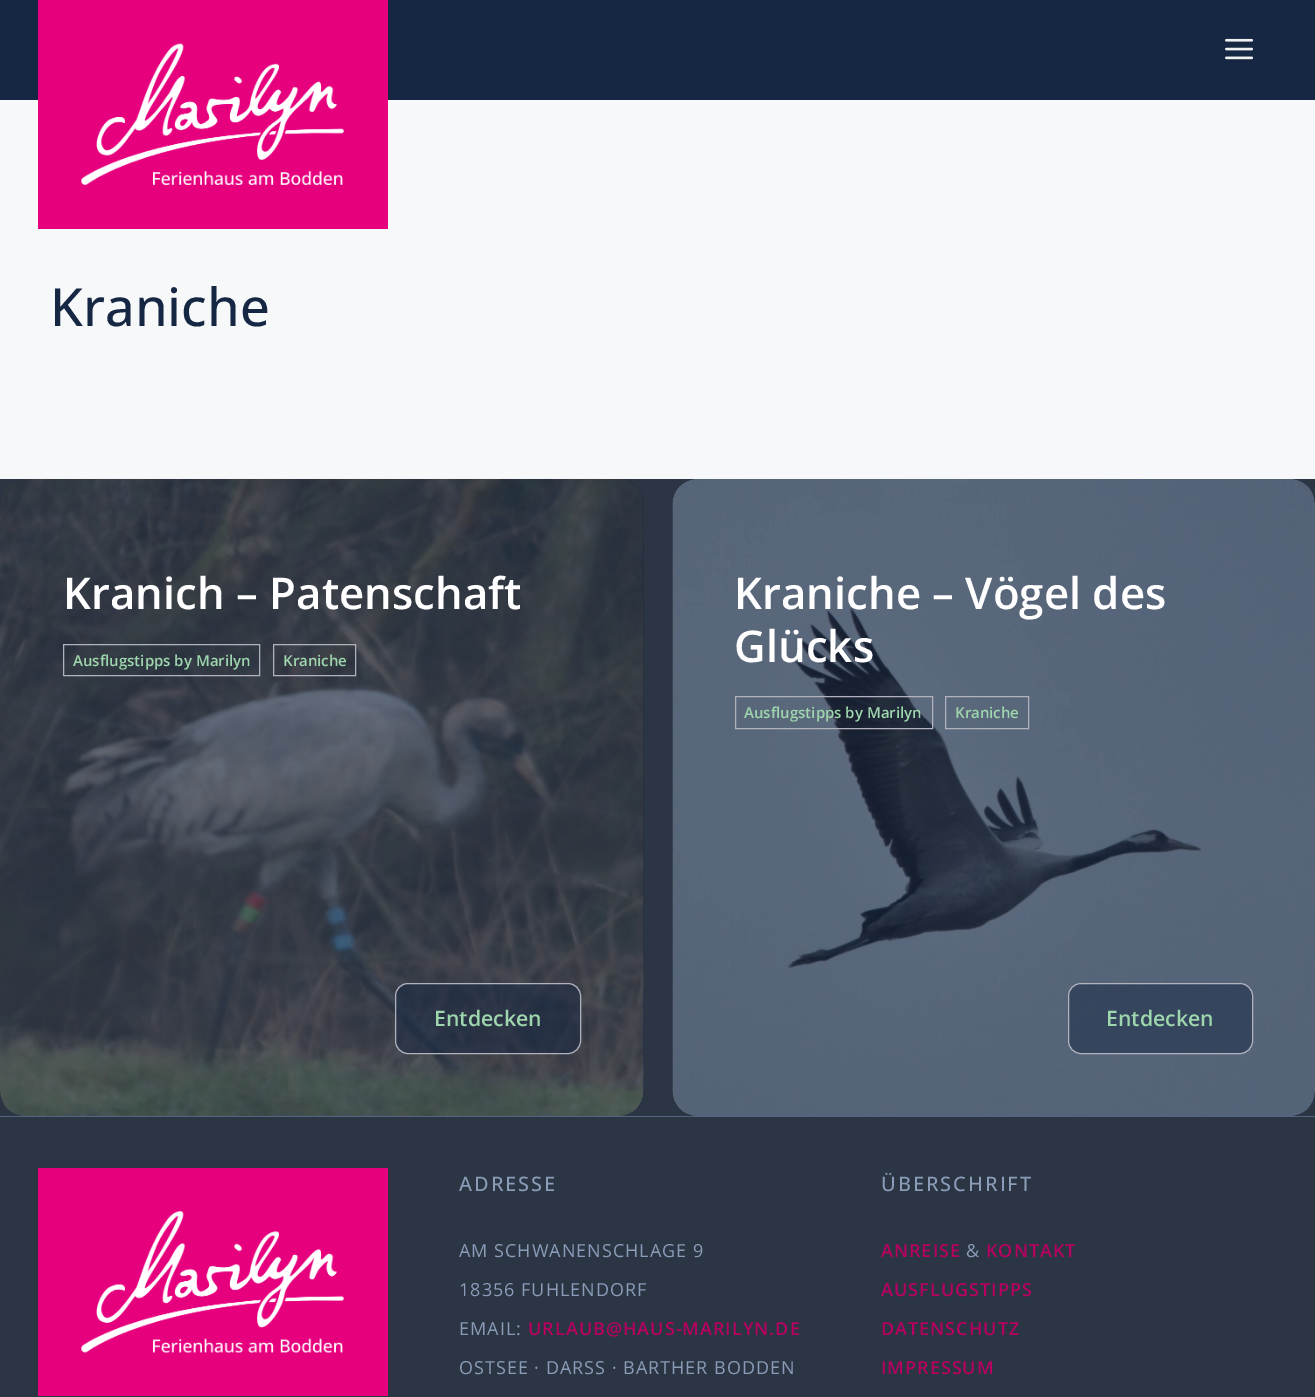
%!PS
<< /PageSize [1315 1397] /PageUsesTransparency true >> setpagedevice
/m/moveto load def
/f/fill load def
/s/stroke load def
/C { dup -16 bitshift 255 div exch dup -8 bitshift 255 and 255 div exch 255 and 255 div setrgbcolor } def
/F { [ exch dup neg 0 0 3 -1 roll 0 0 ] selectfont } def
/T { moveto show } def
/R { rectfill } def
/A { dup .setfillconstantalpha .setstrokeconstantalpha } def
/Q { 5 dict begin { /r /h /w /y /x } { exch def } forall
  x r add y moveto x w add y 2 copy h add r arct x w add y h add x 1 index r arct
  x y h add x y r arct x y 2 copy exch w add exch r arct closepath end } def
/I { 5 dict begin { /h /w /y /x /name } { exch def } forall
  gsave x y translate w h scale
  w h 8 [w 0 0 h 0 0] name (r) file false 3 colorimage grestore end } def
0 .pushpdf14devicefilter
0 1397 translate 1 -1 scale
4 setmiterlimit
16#F7F8F9 C
0 0 1315 1397 R
16#162743 C
0 0 1315 100 R
16#E6007E C
38 0 350 229 R
(1.rgb) 81 43 263 142 I
(2.rgb) 1225 38 28 22 I
/OpenSans-Medium 52.5 F
16#162743 C
(Kraniche) 50 326 T
16#2B3544 C
0 479 1315 637 R
16#162743 C
0 479 644 637 25 Q f
(3.rgb) 0 478 644 638 I
/OpenSans-SemiBold 43.75 F
16#FFFFFF C
(Kranich – Patenschaft) 63 609 T
16#B2B2BE C
63.5 644.5 196 31 rectstroke
/OpenSans-SemiBold 15 F
16#9ED6AD C
(Ausflugstipps by Marilyn) 73 666 T
16#B2B2BE C
273.5 644.5 82 31 rectstroke
16#9ED6AD C
(Kraniche) 283 666 T
0.5 A
16#162742 C
395.5 983.5 185 70 12.5 Q f
1 A
16#B2B2BE C
395.5 983.5 185 70 12.5 Q s
/OpenSans-SemiBold 21.25 F
16#9ED6AD C
(Entdecken) 434 1026 T
16#162743 C
673 479 642 637 25 Q f
(4.rgb) 672 479 643 637 I
/OpenSans-SemiBold 43.75 F
16#FFFFFF C
(Kraniche – Vögel des) 734 609 T
(Glücks) 734 662 T
16#B2B2BE C
735.5 696.5 197 32 rectstroke
/OpenSans-SemiBold 15 F
16#9ED6AD C
(Ausflugstipps by Marilyn) 744 718 T
16#B2B2BE C
945.5 696.5 83 32 rectstroke
16#9ED6AD C
(Kraniche) 955 718 T
0.5 A
16#162742 C
1068.5 983.5 184 70 12.5 Q f
1 A
16#B2B2BE C
1068.5 983.5 184 70 12.5 Q s
/OpenSans-SemiBold 21.25 F
16#9ED6AD C
(Entdecken) 1106 1026 T
16#2B3544 C
0 1117 1315 280 R
16#52647F C
0 1116 1315 1 R
16#E6007E C
38 1168 350 228 R
(5.rgb) 81 1211 263 142 I
/OpenSans-Medium 20 F
16#8A9CB8 C
459 1191 m 2 0 (ADRESSE) ashow
/OpenSans-Regular 18 F
459 1257 m 1 0 (AM SCHWANENSCHLAGE 9) ashow
459 1296 m 1 0 (18356 FUHLENDORF) ashow
459 1335 m 1 0 (EMAIL:) ashow
/OpenSans-SemiBold 18 F
16#B60160 C
528 1335 m 1 0 (URLAUB@HAUS-MARILYN.DE) ashow
/OpenSans-Regular 18 F
16#8A9CB8 C
459 1374 m 1 0 (OSTSEE · DARSS · BARTHER BODDEN) ashow
/OpenSans-Medium 20 F
881 1191 m 2 0 (ÜBERSCHRIFT) ashow
/OpenSans-SemiBold 18 F
16#B60160 C
881 1257 m 1 0 (ANREISE) ashow
/OpenSans-Regular 18 F
16#8A9CB8 C
966 1257 m 1 0 (&) ashow
/OpenSans-SemiBold 18 F
16#B60160 C
986 1257 m 1 0 (KONTAKT) ashow
881 1296 m 1 0 (AUSFLUGSTIPPS) ashow
881 1335 m 1 0 (DATENSCHUTZ) ashow
881 1374 m 1 0 (IMPRESSUM) ashow
.poppdf14devicefilter showpage
